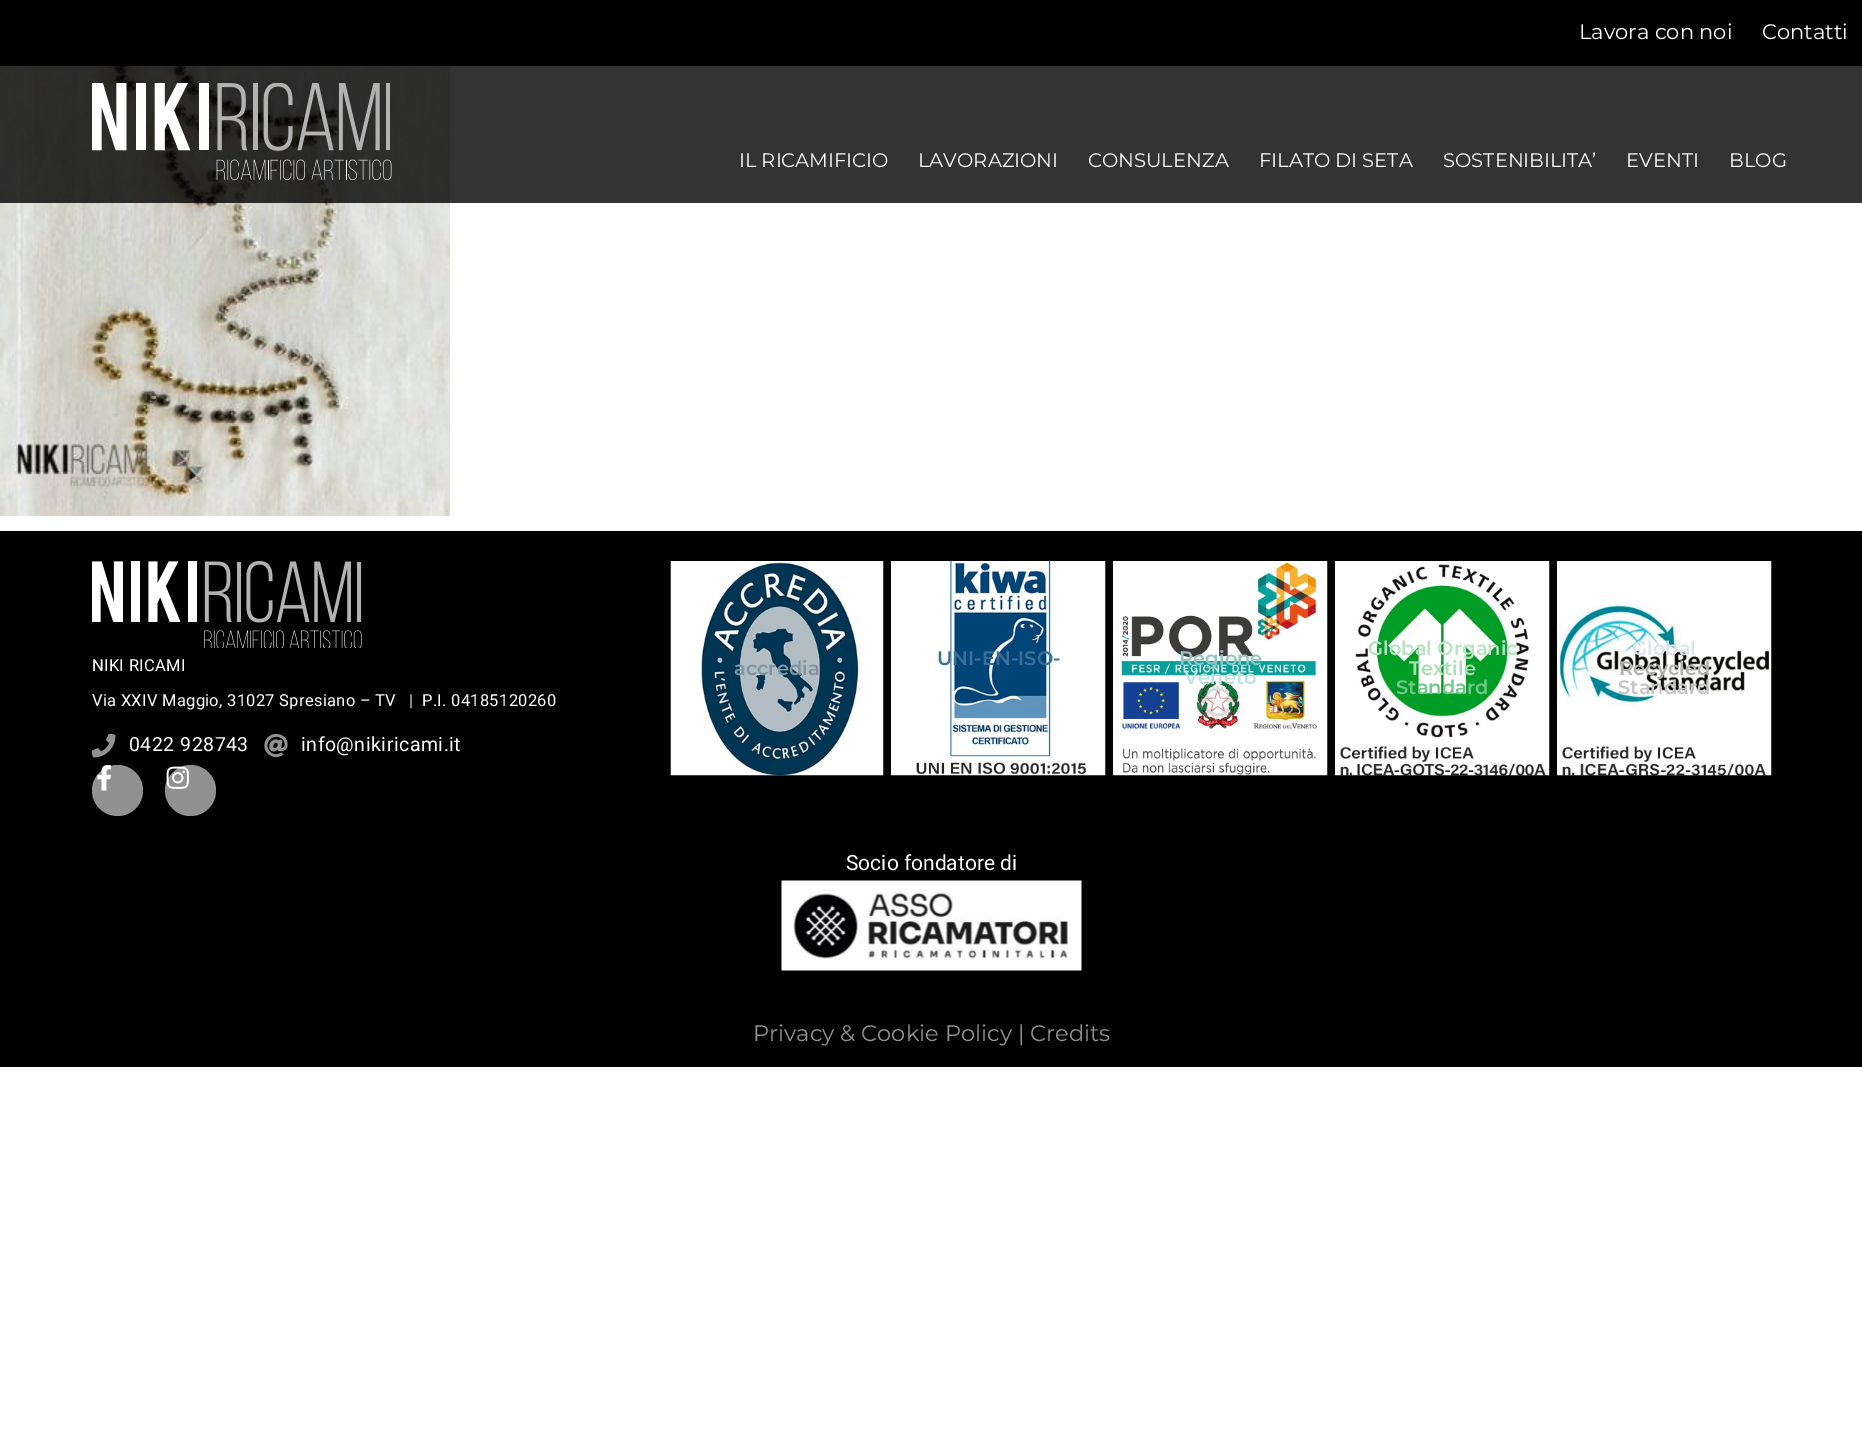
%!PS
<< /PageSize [1862 1430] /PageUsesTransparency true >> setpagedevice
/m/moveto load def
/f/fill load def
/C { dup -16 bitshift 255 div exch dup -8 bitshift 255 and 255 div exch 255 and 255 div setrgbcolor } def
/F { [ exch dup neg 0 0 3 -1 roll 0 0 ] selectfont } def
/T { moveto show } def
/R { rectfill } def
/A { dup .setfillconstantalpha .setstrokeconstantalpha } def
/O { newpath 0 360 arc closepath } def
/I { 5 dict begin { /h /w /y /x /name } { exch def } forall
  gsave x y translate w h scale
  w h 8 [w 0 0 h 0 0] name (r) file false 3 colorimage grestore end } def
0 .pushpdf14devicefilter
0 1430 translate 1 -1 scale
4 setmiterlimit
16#FFFFFF C
0 0 1862 1430 R
(1.rgb) 0 66 450 450 I
16#000000 C
0 0 1862 66 R
/Montserrat-Regular 21 F
16#FFFFFF C
(Lavora con noi) 1579 39 T
(Contatti) 1762 39 T
0.8 A
16#000000 C
0 66 1862 137 R
1 A
(2.rgb) 92 83 300 97 I
/Montserrat-Regular 19.5 F
16#FFFFFF C
(IL RICAMIFICIO) 739 167 T
(LAVORAZIONI) 918 167 T
(CONSULENZA) 1088 167 T
(FILATO DI SETA) 1259 167 T
(SOSTENIBILITA’) 1443 167 T
(EVENTI) 1626 167 T
(BLOG) 1729 167 T
16#000000 C
0 531 1862 536 R
(3.rgb) 92 561 270 87 I
/Roboto-Regular 16.5 F
16#FFFFFF C
92 671 m .3 0 (NIKI RICAMI) ashow
92 706 m .3 0 (Via XXIV Maggio, 31027 Spresiano – TV   |) ashow
422 706 m .3 0 (P.I. 04185120260) ashow
(4.rgb) 92 734 24 24 I
/Roboto-Regular 19.5 F
129 751 m .5 0 (0422 928743) ashow
(5.rgb) 264 734 24 24 I
301 751 m .5 0 (info@nikiricami.it) ashow
16#919191 C
117.5 790.5 25.5 O f
(6.rgb) 97 765 15 26 I
190.5 790.5 25.5 O f
(7.rgb) 166 766 23 23 I
(8.rgb) 670 561 214 215 I
/Montserrat-SemiBold 19.5 F
16#7F95A2 C
(accredia) 734 675 T
(9.rgb) 891 561 215 215 I
16#3B7096 C
(UNI-EN-ISO-) 937 665 T
(10.rgb) 1113 561 215 215 I
16#93C5C3 C
(Regione) 1179 665 T
16#BDE3E0 C
(Veneto) 1184 684 T
(11.rgb) 1335 561 215 215 I
16#B9E4C3 C
(Global Organic) 1368 655 T
16#ABDEB6 C
(Textile) 1409 675 T
16#71C886 C
(Standard) 1396 694 T
(12.rgb) 1557 561 215 215 I
16#DBE5E5 C
(Global) 1632 655 T
16#B0B0AE C
(Recycled) 1619 675 T
16#C4C5C4 C
(Standard) 1618 694 T
/Roboto-Regular 21 F
16#FFFFFF C
(Socio fondatore di) 846 870 T
(13.rgb) 781 880 301 91 I
/Montserrat-Regular 22.5 F
16#919191 C
(Privacy & Cookie Policy | Credits) 753 1041 T
.poppdf14devicefilter showpage
